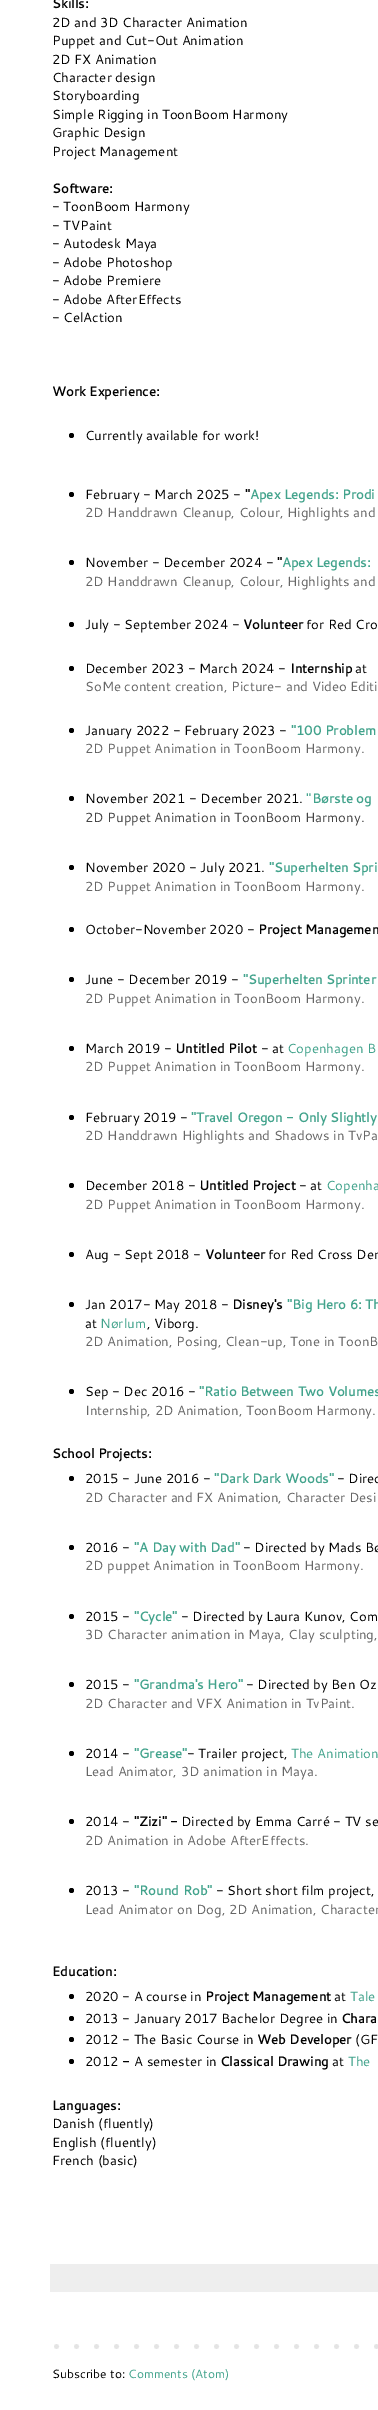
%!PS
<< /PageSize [378 2410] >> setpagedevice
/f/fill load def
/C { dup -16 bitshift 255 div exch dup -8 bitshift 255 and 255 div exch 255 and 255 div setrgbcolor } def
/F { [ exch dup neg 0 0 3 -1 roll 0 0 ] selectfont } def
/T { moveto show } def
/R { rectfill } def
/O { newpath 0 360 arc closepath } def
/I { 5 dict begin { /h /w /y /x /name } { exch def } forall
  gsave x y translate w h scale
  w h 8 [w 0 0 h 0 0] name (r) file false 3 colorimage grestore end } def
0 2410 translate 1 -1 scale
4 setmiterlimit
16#FFFFFF C
0 0 378 2410 R
/Cantarell-Bold 13.2 F
16#000000 C
(Skills:) 52 8 T
/Cantarell-Regular 13.2 F
(2D and 3D Character Animation) 52 27 T
(Puppet and Cut-Out Animation) 52 45 T
(2D FX Animation) 52 64 T
(Character design) 52 82 T
(Storyboarding) 52 100 T
(Simple Rigging in ToonBoom Harmony) 52 119 T
(Graphic Design) 52 137 T
(Project Management) 52 156 T
/Cantarell-Bold 13.2 F
(Software:) 52 193 T
/Cantarell-Regular 13.2 F
(- ToonBoom Harmony) 52 211 T
(- TVPaint) 52 230 T
(- Autodesk Maya) 52 248 T
(- Adobe Photoshop) 52 267 T
(- Adobe Premiere) 52 285 T
(- Adobe AfterEffects) 52 304 T
(- CelAction) 52 322 T
/Cantarell-Bold 13.2 F
(Work Experience:) 52 396 T
71.5 435.5 2.5 O f
/Cantarell-Regular 13.2 F
(Currently available for work!) 85 440 T
71.5 494.5 2.5 O f
(February - March 2025 -) 85 499 T
/Cantarell-Bold 13.2 F
(") 245 499 T
16#42A38C C
(Apex Legends: Prodi) 250 499 T
/Cantarell-Regular 13.2 F
16#666666 C
(2D Handdrawn Cleanup, Colour, Highlights and) 85 517 T
16#000000 C
71.5 562.5 2.5 O f
(November - December 2024 -) 85 567 T
/Cantarell-Bold 13.2 F
(") 277 567 T
16#42A38C C
(Apex Legends:) 282 567 T
/Cantarell-Regular 13.2 F
16#666666 C
(2D Handdrawn Cleanup, Colour, Highlights and) 85 586 T
16#000000 C
71.5 624.5 2.5 O f
(July - September 2024 -) 85 629 T
/Cantarell-Bold 13.2 F
(Volunteer) 243 629 T
/Cantarell-Regular 13.2 F
(for Red Cro) 306 629 T
71.5 668.5 2.5 O f
(December 2023 - March 2024 -) 85 673 T
/Cantarell-Bold 13.2 F
(Internship) 290 673 T
/Cantarell-Regular 13.2 F
(at) 355 673 T
16#666666 C
(SoMe content creation, Picture- and Video Editi) 85 691 T
16#000000 C
71.5 730.5 2.5 O f
(January 2022 - February 2023 -) 85 735 T
/Cantarell-Bold 13.2 F
16#42A38C C
("100 Problem) 291 735 T
/Cantarell-Regular 13.2 F
16#666666 C
(2D Puppet Animation in ToonBoom Harmony.) 85 753 T
16#000000 C
71.5 798.5 2.5 O f
(November 2021 - December 2021.) 85 803 T
16#42A38C C
(") 306 803 T
/Cantarell-Bold 13.2 F
(Børste og) 312 803 T
/Cantarell-Regular 13.2 F
16#444444 C
(2D Puppet Animation in ToonBoom Harmony.) 85 822 T
16#000000 C
71.5 867.5 2.5 O f
(November 2020 - July 2021.) 85 872 T
/Cantarell-Bold 13.2 F
16#42A38C C
("Superhelten Spri) 269 872 T
/Cantarell-Regular 13.2 F
16#666666 C
(2D Puppet Animation in ToonBoom Harmony.) 85 891 T
16#000000 C
71.5 929.5 2.5 O f
(October-November 2020 -) 85 934 T
/Cantarell-Bold 13.2 F
(Project Managemen) 258 934 T
71.5 979.5 2.5 O f
/Cantarell-Regular 13.2 F
(June - December 2019 -) 85 984 T
/Cantarell-Bold 13.2 F
16#42A38C C
("Superhelten Sprinter) 243 984 T
/Cantarell-Regular 13.2 F
16#666666 C
(2D Puppet Animation in ToonBoom Harmony.) 85 1003 T
16#000000 C
71.5 1048.5 2.5 O f
(March 2019 -) 85 1053 T
/Cantarell-Bold 13.2 F
(Untitled Pilot) 175 1053 T
/Cantarell-Regular 13.2 F
(- at) 261 1053 T
16#42A38C C
(Copenhagen B) 287 1053 T
16#666666 C
(2D Puppet Animation in ToonBoom Harmony.) 85 1071 T
16#000000 C
71.5 1117.5 2.5 O f
(February 2019 -) 85 1122 T
/Cantarell-Bold 13.2 F
16#42A38C C
("Travel Oregon - Only Slightly) 191 1122 T
/Cantarell-Regular 13.2 F
16#666666 C
(2D Handdrawn Highlights and Shadows in TvPa) 85 1140 T
16#000000 C
71.5 1185.5 2.5 O f
(December 2018 -) 85 1190 T
/Cantarell-Bold 13.2 F
(Untitled Project) 199 1190 T
/Cantarell-Regular 13.2 F
(- at) 299 1190 T
16#42A38C C
(Copenha) 326 1190 T
16#666666 C
(2D Puppet Animation in ToonBoom Harmony.) 85 1209 T
16#000000 C
71.5 1254.5 2.5 O f
(Aug - Sept 2018 -) 85 1259 T
/Cantarell-Bold 13.2 F
(Volunteer) 205 1259 T
/Cantarell-Regular 13.2 F
(for Red Cross Den) 268 1259 T
71.5 1304.5 2.5 O f
(Jan 2017- May 2018 -) 85 1309 T
/Cantarell-Bold 13.2 F
(Disney's) 232 1309 T
16#42A38C C
("Big Hero 6: Th) 287 1309 T
/Cantarell-Regular 13.2 F
16#000000 C
(at) 85 1328 T
16#42A38C C
(Nørlum) 100 1328 T
16#000000 C
(, Viborg.) 147 1328 T
16#666666 C
(2D Animation, Posing, Clean-up, Tone in ToonB) 85 1346 T
16#000000 C
71.5 1391.5 2.5 O f
(Sep - Dec 2016 -) 85 1396 T
/Cantarell-Bold 13.2 F
16#42A38C C
("Ratio Between Two Volumes) 199 1396 T
/Cantarell-Regular 13.2 F
16#666666 C
(Internship, 2D Animation, ToonBoom Harmony.) 85 1415 T
/Cantarell-Bold 13.2 F
16#000000 C
(School Projects:) 52 1458 T
71.5 1478.5 2.5 O f
/Cantarell-Regular 13.2 F
(2015 - June 2016 -) 85 1483 T
/Cantarell-Bold 13.2 F
16#42A38C C
("Dark Dark Woods") 214 1483 T
/Cantarell-Regular 13.2 F
16#000000 C
(- Direc) 337 1483 T
16#666666 C
(2D Character and FX Animation, Character Desi) 85 1502 T
16#000000 C
71.5 1547.5 2.5 O f
(2016 -) 85 1552 T
/Cantarell-Bold 13.2 F
16#42A38C C
("A Day with Dad") 134 1552 T
/Cantarell-Regular 13.2 F
16#000000 C
(- Directed by Mads Bø) 243 1552 T
16#666666 C
(2D puppet Animation in ToonBoom Harmony.) 85 1570 T
16#000000 C
71.5 1616.5 2.5 O f
(2015 -) 85 1621 T
/Cantarell-Bold 13.2 F
16#42A38C C
("Cycle") 134 1621 T
/Cantarell-Regular 13.2 F
16#000000 C
(- Directed by Laura Kunov, Com) 181 1621 T
16#666666 C
(3D Character animation in Maya, Clay sculpting,) 85 1639 T
16#000000 C
71.5 1684.5 2.5 O f
(2015 -) 85 1689 T
/Cantarell-Bold 13.2 F
16#42A38C C
("Grandma's Hero") 134 1689 T
/Cantarell-Regular 13.2 F
16#000000 C
(- Directed by Ben Oz) 246 1689 T
16#666666 C
(2D Character and VFX Animation in TvPaint.) 85 1708 T
16#000000 C
71.5 1753.5 2.5 O f
(2014 -) 85 1758 T
/Cantarell-Bold 13.2 F
16#42A38C C
("Grease") 134 1758 T
/Cantarell-Regular 13.2 F
16#000000 C
(- Trailer project,) 187 1758 T
16#42A38C C
(The Animation) 291 1758 T
16#666666 C
(Lead Animator, 3D animation in Maya.) 85 1776 T
16#000000 C
71.5 1821.5 2.5 O f
(2014 -) 85 1826 T
/Cantarell-Bold 13.2 F
("Zizi" -) 134 1826 T
/Cantarell-Regular 13.2 F
(Directed by Emma Carré - TV se) 181 1826 T
16#666666 C
(2D Animation in Adobe AfterEffects.) 85 1845 T
16#000000 C
71.5 1890.5 2.5 O f
(2013 -) 85 1895 T
/Cantarell-Bold 13.2 F
16#42A38C C
("Round Rob") 134 1895 T
/Cantarell-Regular 13.2 F
16#000000 C
(- Short short film project,) 216 1895 T
16#666666 C
(Lead Animator on Dog, 2D Animation, Character) 85 1914 T
/Cantarell-Bold 13.2 F
16#000000 C
(Education:) 52 1976 T
71.5 1996.5 2.5 O f
/Cantarell-Regular 13.2 F
(2020 - A course in) 85 2001 T
/Cantarell-Bold 13.2 F
(Project Management) 205 2001 T
/Cantarell-Regular 13.2 F
(at) 334 2001 T
16#42A38C C
(Tale) 350 2001 T
16#000000 C
71.5 2018.5 2.5 O f
(2013 - January 2017 Bachelor Degree in) 85 2023 T
/Cantarell-Bold 13.2 F
(Chara) 341 2023 T
71.5 2039.5 2.5 O f
/Cantarell-Regular 13.2 F
(2012 - The Basic Course in) 85 2044 T
/Cantarell-Bold 13.2 F
(Web Developer) 257 2044 T
/Cantarell-Regular 13.2 F
(\(GF) 355 2044 T
71.5 2061.5 2.5 O f
(2012) 85 2066 T
/Cantarell-Bold 13.2 F
(-) 122 2066 T
/Cantarell-Regular 13.2 F
(A semester in) 134 2066 T
/Cantarell-Bold 13.2 F
(Classical Drawing) 220 2066 T
/Cantarell-Regular 13.2 F
(at) 332 2066 T
16#42A38C C
(The) 348 2066 T
/Cantarell-Bold 13.2 F
16#000000 C
(Languages:) 52 2110 T
/Cantarell-Regular 13.2 F
(Danish \(fluently\)) 52 2128 T
(English \(fluently\)) 52 2147 T
(French \(basic\)) 52 2165 T
16#EEEEEE C
50 2264 328 28 R
(1.rgb) 54 2344 324 5 I
/Cantarell-Regular 12 F
16#000000 C
(Subscribe to:) 52 2378 T
16#42A38C C
(Comments \(Atom\)) 128 2378 T
showpage
